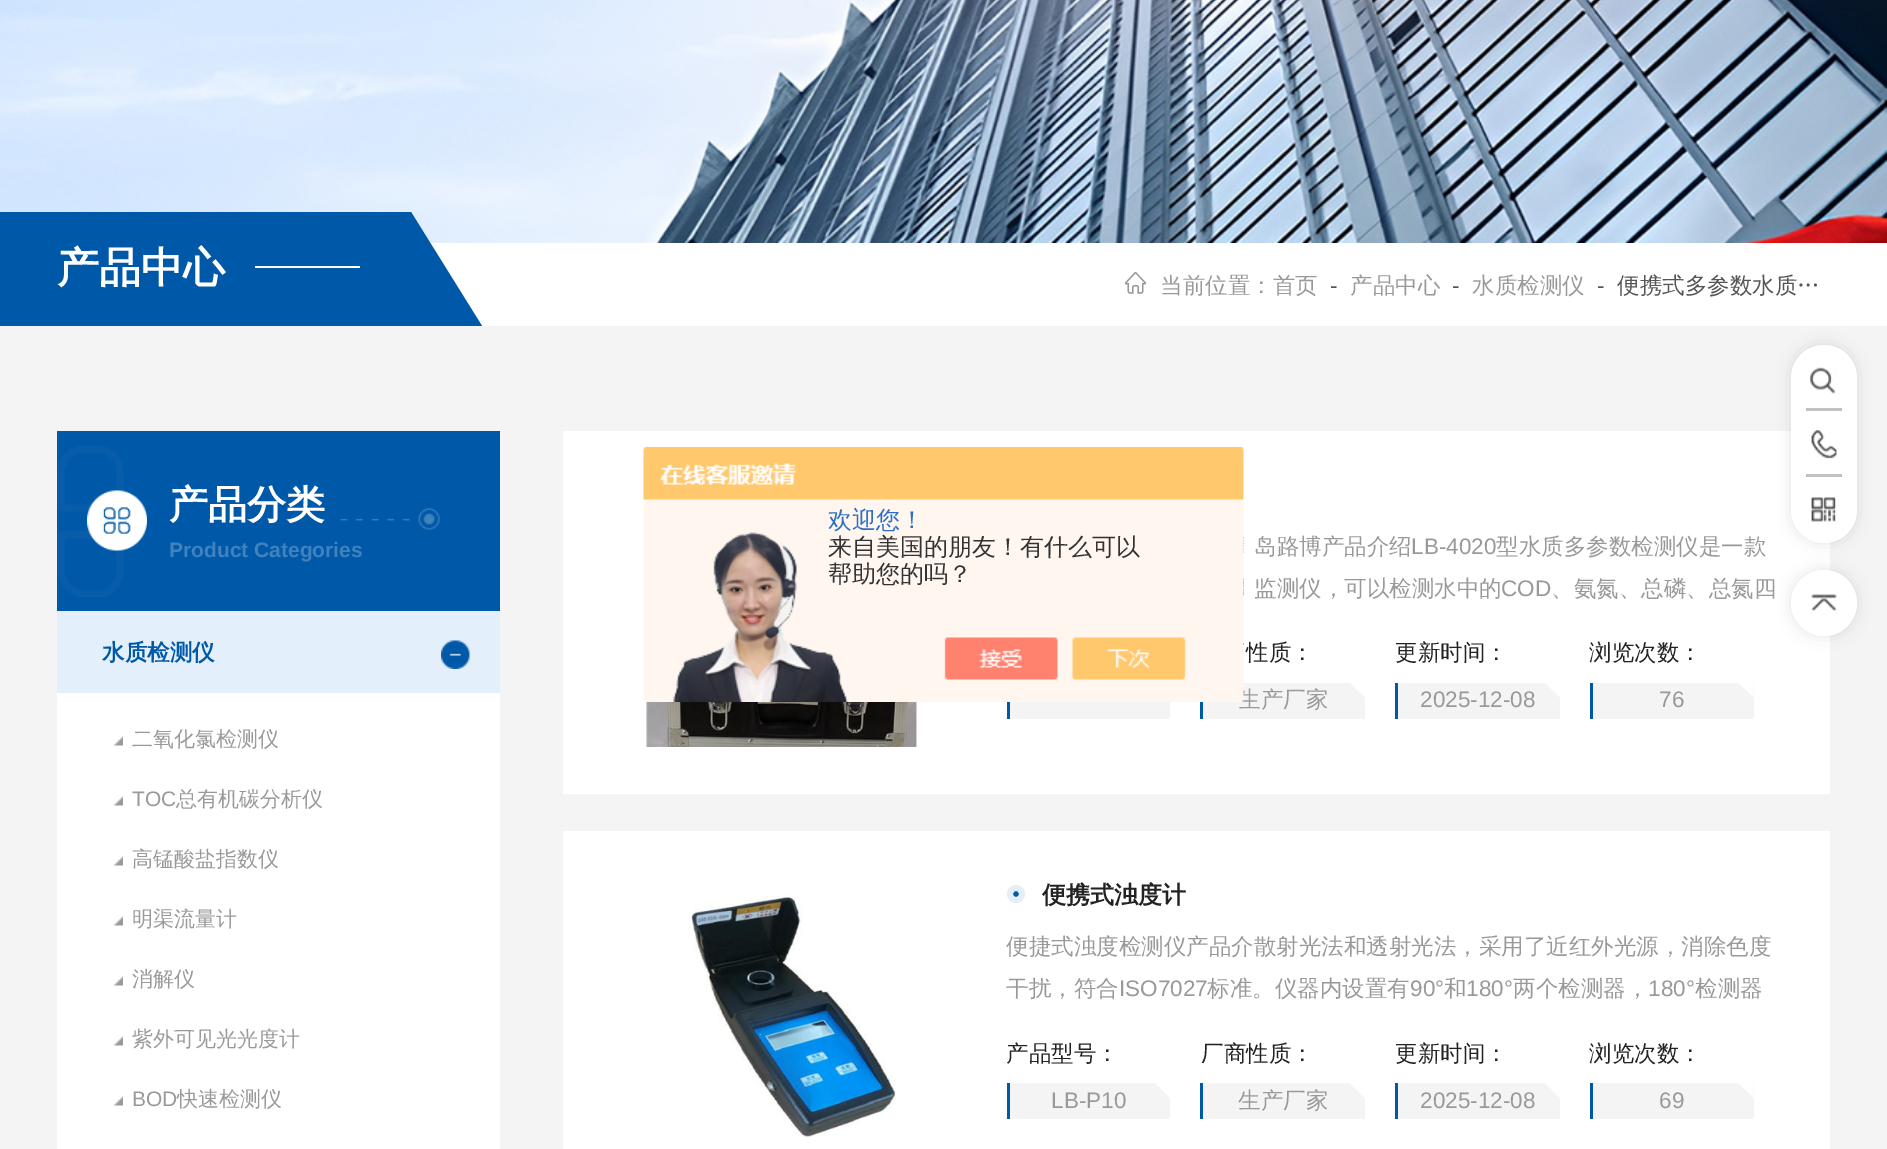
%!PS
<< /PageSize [1887 1149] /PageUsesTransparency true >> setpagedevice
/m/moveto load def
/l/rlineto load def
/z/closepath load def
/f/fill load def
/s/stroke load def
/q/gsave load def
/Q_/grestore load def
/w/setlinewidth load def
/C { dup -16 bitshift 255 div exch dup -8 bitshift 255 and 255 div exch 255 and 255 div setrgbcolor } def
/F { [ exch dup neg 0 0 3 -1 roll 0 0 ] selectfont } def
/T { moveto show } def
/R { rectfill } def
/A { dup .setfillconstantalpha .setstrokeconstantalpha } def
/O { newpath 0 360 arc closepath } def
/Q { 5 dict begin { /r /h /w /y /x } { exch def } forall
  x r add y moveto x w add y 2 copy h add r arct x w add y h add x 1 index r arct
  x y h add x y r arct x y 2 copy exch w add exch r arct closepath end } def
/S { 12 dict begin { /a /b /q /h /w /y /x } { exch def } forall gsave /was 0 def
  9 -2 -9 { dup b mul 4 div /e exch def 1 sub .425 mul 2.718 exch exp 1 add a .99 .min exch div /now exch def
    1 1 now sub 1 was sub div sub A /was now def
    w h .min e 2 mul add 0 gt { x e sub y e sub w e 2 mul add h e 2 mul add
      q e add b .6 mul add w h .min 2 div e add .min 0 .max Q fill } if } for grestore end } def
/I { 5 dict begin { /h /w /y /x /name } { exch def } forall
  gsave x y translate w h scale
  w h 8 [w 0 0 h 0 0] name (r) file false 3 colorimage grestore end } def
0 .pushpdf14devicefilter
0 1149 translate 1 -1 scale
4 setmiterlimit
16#FFFFFF C
0 0 1887 1149 R
(1.rgb) 0 0 1887 243 I
16#0058A8 C
0 212 92 114 R
21 212 m 390 0 l 71 114 l -390 0 l z f
/WenQuanYiZenHei-Bold 42 F
16#FFFFFF C
(产品中心) 57 282 T
255 266 105 2 R
(2.rgb) 1124 271 23 23 I
/WenQuanYiZenHei-Medium 22.5 F
16#999999 C
(当前位置：首页) 1160 293 T
/LiberationSans-Regular 22.5 F
16#555555 C
(-) 1330 293 T
/WenQuanYiZenHei-Medium 22.5 F
16#999999 C
(产品中心) 1350 293 T
/LiberationSans-Regular 22.5 F
16#555555 C
(-) 1452 293 T
/WenQuanYiZenHei-Medium 22.5 F
16#999999 C
(水质检测仪) 1472 293 T
/LiberationSans-Regular 22.5 F
16#555555 C
(-) 1597 293 T
/WenQuanYiZenHei-Medium 22.5 F
(便携式多参数水质…) 1617 293 T
16#F4F4F4 C
0 326 1887 823 R
16#0058A8 C
57 431 443 180 R
(3.rgb) 57 445 67 152 I
(4.rgb) 87 490 60 61 I
/WenQuanYiZenHei-Bold 39 F
16#FFFFFF C
(产品分类) 169 518 T
(5.rgb) 340 508 100 22 I
/LiberationSans-Bold 21 F
16#4082BE C
(Product Categories) 169 557 T
16#FFFFFF C
57 693 443 456 R
16#E3EFFA C
57 611 443 82 R
/WenQuanYiZenHei-Bold 22.5 F
16#0058A8 C
(水质检测仪) 102 660 T
(6.rgb) 441 640 29 29 I
(7.rgb) 114 736 9 10 I
/WenQuanYiZenHei-Medium 21 F
16#999999 C
(二氧化氯检测仪) 132 746 T
(7.rgb) 114 796 9 10 I
/LiberationSans-Regular 21 F
(TOC) 132 806 T
/WenQuanYiZenHei-Medium 21 F
(总有机碳分析仪) 176 806 T
(7.rgb) 114 856 9 10 I
(高锰酸盐指数仪) 132 866 T
(7.rgb) 114 916 9 10 I
(明渠流量计) 132 926 T
(7.rgb) 114 976 9 10 I
(消解仪) 132 986 T
(7.rgb) 114 1036 9 10 I
(紫外可见光光度计) 132 1046 T
(7.rgb) 114 1096 9 10 I
/LiberationSans-Regular 21 F
(BOD) 132 1106 T
/WenQuanYiZenHei-Medium 21 F
(快速检测仪) 177 1106 T
16#FFFFFF C
563 431 1267 363 R
/WenQuanYiZenHei-Medium 22.5 F
16#999999 C
(岛路博产品介绍) 1254 554 T
/LiberationSans-Regular 22.5 F
(LB-4020) 1411 554 T
/WenQuanYiZenHei-Medium 22.5 F
(型水质多参数检测仪是一款) 1496 554 T
(监测仪，可以检测水中的) 1254 596 T
/LiberationSans-Regular 22.5 F
(COD) 1501 596 T
/WenQuanYiZenHei-Medium 22.5 F
(、氨氮、总磷、总氮四) 1551 596 T
16#222222 C
(性质：) 1246 660 T
16#F4F4F4 C
1203 683 162 36 R
16#0058A8 C
1200 702 3 17 R
16#999999 C
(生产厂家) 1238 707 T
q
1200 683 165 36 rectclip
16#FFFFFF C
1350 682.5 m 15 0 l 0 15 l z f
Q_
16#222222 C
(更新时间：) 1395 660 T
16#F4F4F4 C
1398 683 162 36 R
16#0058A8 C
1395 683 3 36 R
/LiberationSans-Regular 22.5 F
16#999999 C
(2025-12-08) 1420 707 T
q
1395 683 165 36 rectclip
16#FFFFFF C
1545 682.5 m 15 0 l 0 15 l z f
Q_
/WenQuanYiZenHei-Medium 22.5 F
16#222222 C
(浏览次数：) 1589 660 T
16#F4F4F4 C
1593 683 161 36 R
16#0058A8 C
1590 683 3 36 R
/LiberationSans-Regular 22.5 F
16#999999 C
(76) 1659 707 T
q
1590 683 164 36 rectclip
16#FFFFFF C
1738.5 682.5 m 15 0 l 0 15 l z f
Q_
16#F4F4F4 C
1010 702 160 17 R
16#0058A8 C
1007 702 3 17 R
(8.rgb) 646 700 271 47 I
16#FFFFFF C
563 831 1267 318 R
(9.rgb) 688 895 209 242 I
16#0058A8 C
1016 894 6 O q f Q_
16#E5EEF6 C
6 w
s
/WenQuanYiZenHei-Bold 24 F
16#222222 C
(便携式浊度计) 1042 903 T
/WenQuanYiZenHei-Medium 22.5 F
16#999999 C
(便捷式浊度检测仪产品介散射光法和透射光法，采用了近红外光源，消除色度) 1006 954 T
(干扰，符合) 1006 996 T
/LiberationSans-Regular 22.5 F
(ISO7027) 1119 996 T
/WenQuanYiZenHei-Medium 22.5 F
(标准。仪器内设置有) 1207 996 T
/LiberationSans-Regular 22.5 F
(90°) 1410 996 T
/WenQuanYiZenHei-Medium 22.5 F
(和) 1444 996 T
/LiberationSans-Regular 22.5 F
(180°) 1466 996 T
/WenQuanYiZenHei-Medium 22.5 F
(两个检测器，) 1513 996 T
/LiberationSans-Regular 22.5 F
(180°) 1648 996 T
/WenQuanYiZenHei-Medium 22.5 F
(检测器) 1695 996 T
16#222222 C
(产品型号：) 1006 1061 T
16#F4F4F4 C
1010 1083 160 36 R
16#0058A8 C
1007 1083 3 36 R
16#FFFFFF C
1155 1083 m 15 0 l 0 15 l z f
/LiberationSans-Regular 22.5 F
16#999999 C
(LB-P10) 1051 1108 T
/WenQuanYiZenHei-Medium 22.5 F
16#222222 C
(厂商性质：) 1201 1061 T
16#F4F4F4 C
1203 1083 162 36 R
16#0058A8 C
1200 1083 3 36 R
16#999999 C
(生产厂家) 1238 1108 T
16#FFFFFF C
1350 1083 m 15 0 l 0 15 l z f
16#222222 C
(更新时间：) 1395 1061 T
16#F4F4F4 C
1398 1083 162 36 R
16#0058A8 C
1395 1083 3 36 R
16#FFFFFF C
1545 1083 m 15 0 l 0 15 l z f
/LiberationSans-Regular 22.5 F
16#999999 C
(2025-12-08) 1420 1108 T
/WenQuanYiZenHei-Medium 22.5 F
16#222222 C
(浏览次数：) 1589 1061 T
16#F4F4F4 C
1593 1083 161 36 R
16#0058A8 C
1590 1083 3 36 R
16#FFFFFF C
1738.5 1083 m 15 0 l 0 15 l z f
/LiberationSans-Regular 22.5 F
16#999999 C
(69) 1659 1108 T
16#000000 C
1791 345 66 198 33 7.5 .1 S
16#FFFFFF C
1791 345 66 198 33 Q f
(10.rgb) 1810 367 26 27 I
16#C2C2C2 C
1806 408 36 3 R
(11.rgb) 1811 430 26 29 I
1806 474 36 3 R
(12.rgb) 1811 497 25 25 I
16#000000 C
1791 570 66 66 33 7.5 .1 S
16#FFFFFF C
1824 603 33 O f
(13.rgb) 1811 594 26 17 I
(14.rgb) 643 447 601 255 I
/WenQuanYiZenHei-Medium 24 F
16#2E6EC6 C
(欢迎您！) 828 528 T
16#333333 C
(来自美国的朋友！有什么可以) 828 555 T
(帮助您的吗？) 828 582 T
.poppdf14devicefilter showpage
